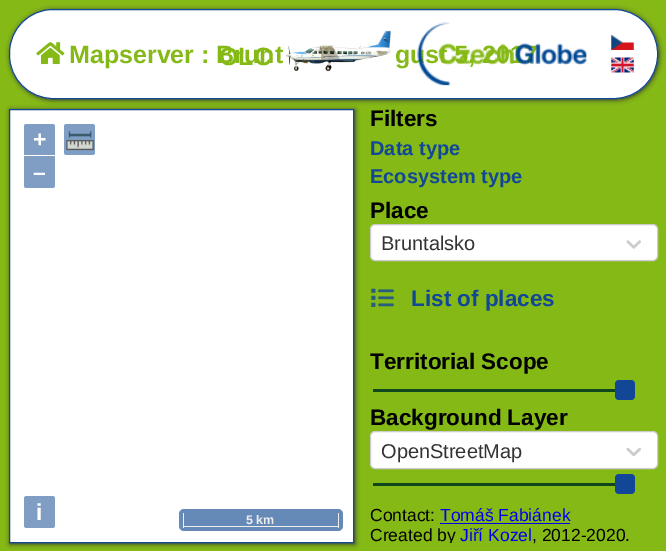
%!PS
<< /PageSize [666 551] /PageUsesTransparency true >> setpagedevice
/m/moveto load def
/l/rlineto load def
/c/rcurveto load def
/z/closepath load def
/f/fill load def
/s/stroke load def
/q/gsave load def
/Q_/grestore load def
/C { dup -16 bitshift 255 div exch dup -8 bitshift 255 and 255 div exch 255 and 255 div setrgbcolor } def
/F { [ exch dup neg 0 0 3 -1 roll 0 0 ] selectfont } def
/T { moveto show } def
/R { rectfill } def
/A { dup .setfillconstantalpha .setstrokeconstantalpha } def
/Q { 5 dict begin { /r /h /w /y /x } { exch def } forall
  x r add y moveto x w add y 2 copy h add r arct x w add y h add x 1 index r arct
  x y h add x y r arct x y 2 copy exch w add exch r arct closepath end } def
/S { 12 dict begin { /a /b /q /h /w /y /x } { exch def } forall gsave /was 0 def
  9 -2 -9 { dup b mul 4 div /e exch def 1 sub .425 mul 2.718 exch exp 1 add a .99 .min exch div /now exch def
    1 1 now sub 1 was sub div sub A /was now def
    w h .min e 2 mul add 0 gt { x e sub y e sub w e 2 mul add h e 2 mul add
      q e add b .6 mul add w h .min 2 div e add .min 0 .max Q fill } if } for grestore end } def
/I { 5 dict begin { /h /w /y /x /name } { exch def } forall
  gsave x y translate w h scale
  w h 8 [w 0 0 h 0 0] name (r) file false 3 colorimage grestore end } def
0 .pushpdf14devicefilter
0 551 translate 1 -1 scale
4 setmiterlimit
16#85B916 C
0 0 666 551 R
16#333333 C
10 10 649 90 44 2.5 1 S
16#FFFFFF C
9.5 9.5 648 89 43.5 Q q f Q_
16#114796 C
s
/LiberationSans-Bold 25 F
16#85B916 C
(gust 5, 2017) 395 63 T
(1.rgb) 417 22 170 64 I
(2.rgb) 611 35 23 15 I
(3.rgb) 611 57 23 16 I
(4.rgb) 36 42 29 23 I
(Mapserver : Brunt) 69 63 T
(OLC) 219 65 T
(5.rgb) 285 30 108 42 I
16#333333 C
10 110 345 434 0 2.5 1 S
16#FFFFFF C
9.5 109.5 m 344 0 l 0 433 l -344 0 l z q f Q_
16#114796 C
s
16#809EC4 C
26.5 124 m 26 0 l 1.5 0 2.5 1 2.5 2.5 c 0 28.5 l -31 0 l 0 -28.5 l 0 -1.5 1 -2.5 2.5 -2.5 c z f
/LiberationSans-Bold 23 F
16#FFFFFF C
(+) 33 147 T
16#809EC4 C
24 156 m 31 0 l 0 29.5 l 0 1.5 -1 2.5 -2.5 2.5 c -26 0 l -1.5 0 -2.5 -1 -2.5 -2.5 c z f
16#FFFFFF C
(–) 33 180 T
16#809EC4 C
64 124 31 31 2.5 Q f
(6.rgb) 66 131 28 20 I
24 496 31 32 2.5 Q f
16#FFFFFF C
(i) 36 520 T
16#668AB8 C
179 509 164 22 5 Q f
16#EEEEEE C
338 513 1 15 R
183 526 156 1 R
183 513 1 15 R
/LiberationSans-Bold 12.5 F
(5 km) 246 524 T
/LiberationSans-Bold 22.5 F
16#000000 C
(Filters) 370 126 T
/LiberationSans-Bold 20 F
16#114796 C
(Data type) 370 155 T
(Ecosystem type) 370 183 T
/LiberationSans-Bold 22.5 F
16#000000 C
(Place) 370 218 T
16#FFFFFF C
370.5 224.5 287 36 4.5 Q q f Q_
16#CCCCCC C
s
/LiberationSans-Regular 20 F
16#333333 C
(Bruntalsko) 381 250 T
(7.rgb) 626 240 15 9 I
(8.rgb) 371 288 23 19 I
/LiberationSans-Bold 22.5 F
16#114796 C
(List of places) 411 306 T
16#000000 C
(Territorial Scope) 370 369 T
16#11471D C
373 389 242 3 R
16#114796 C
615 380 20 20 4 Q f
16#000000 C
(Background Layer) 370 425 T
16#FFFFFF C
370.5 431.5 287 37 4.5 Q q f Q_
16#CCCCCC C
s
/LiberationSans-Regular 20 F
16#333333 C
(OpenStreetMap) 381 458 T
(9.rgb) 626 447 15 10 I
16#11471D C
373 483 242 3 R
16#114796 C
615 474 20 20 4 Q f
/LiberationSans-Regular 17.5 F
16#000000 C
(Contact:) 370 521 T
16#0000EE C
(Tomáš Fabiánek) 440 521 T
440 523 130 1 R
q
370 505 288 38 rectclip
16#000000 C
(Created by) 370 541 T
Q_
(Jiří Kozel) 460 541 T
16#000000 C
(, 2012-2020.) 532 541 T
.poppdf14devicefilter showpage
